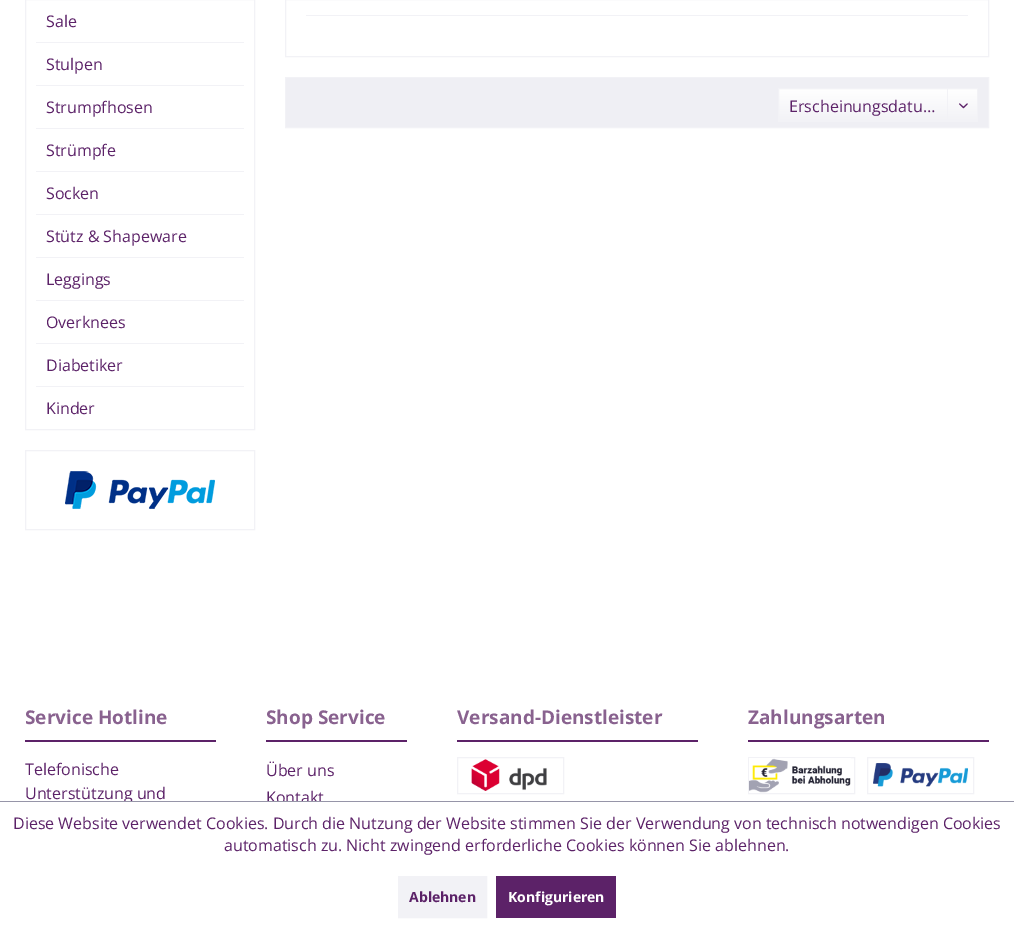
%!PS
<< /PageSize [1014 928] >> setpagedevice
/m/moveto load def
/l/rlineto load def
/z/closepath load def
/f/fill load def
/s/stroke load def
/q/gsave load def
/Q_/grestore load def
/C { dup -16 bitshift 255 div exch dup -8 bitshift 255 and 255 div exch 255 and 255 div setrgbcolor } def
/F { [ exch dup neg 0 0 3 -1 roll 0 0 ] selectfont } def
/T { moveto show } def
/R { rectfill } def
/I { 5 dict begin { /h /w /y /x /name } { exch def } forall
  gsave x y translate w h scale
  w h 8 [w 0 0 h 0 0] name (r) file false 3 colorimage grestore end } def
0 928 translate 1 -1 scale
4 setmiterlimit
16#FFFFFF C
0 0 1014 928 R
16#F2F2F6 C
25.5 -.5 229 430 rectstroke
36 42 208 1 R
/OpenSans-Regular 16 F
16#5C2268 C
(Sale) 46 27 T
16#F2F2F6 C
36 85 208 1 R
16#5C2268 C
(Stulpen) 46 70 T
16#F2F2F6 C
36 128 208 1 R
16#5C2268 C
(Strumpfhosen) 46 113 T
16#F2F2F6 C
36 171 208 1 R
16#5C2268 C
(Strümpfe) 46 156 T
16#F2F2F6 C
36 214 208 1 R
16#5C2268 C
(Socken) 46 199 T
16#F2F2F6 C
36 257 208 1 R
16#5C2268 C
(Stütz & Shapeware) 46 242 T
16#F2F2F6 C
36 300 208 1 R
16#5C2268 C
(Leggings) 46 285 T
16#F2F2F6 C
36 343 208 1 R
16#5C2268 C
(Overknees) 46 328 T
16#F2F2F6 C
36 386 208 1 R
16#5C2268 C
(Diabetiker) 46 371 T
(Kinder) 46 414 T
16#F2F2F6 C
25.5 450.5 229 79 rectstroke
(1.rgb) 65 471 150 38 I
285.5 -.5 703 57 rectstroke
306 15 662 1 R
16#EFEFF4 C
285.5 77.5 m 703 0 l 0 50 l -703 0 l z q f Q_
16#F2F2F6 C
s
q 779 89 m 198 0 l 0 32 l -198 0 l z clip newpath
<< /ShadingType 2 /ColorSpace /DeviceRGB /Coords [878 89 878 121] /Extend [true true] /Function << /FunctionType 2 /Domain [0 1] /C0 [1 1 1] /C1 [.949 .949 .965] /N 1 >> >> shfill Q_
778.5 88.5 199 33 rectstroke
16#5C2268 C
(Erscheinungsdatu…) 789 112 T
16#F2F2F6 C
947 89 1 33 R
(2.rgb) 959 103 9 6 I
16#5C2268 C
25 740 191 2 R
/OpenSans-Bold 19 F
16#89628F C
(Service Hotline) 25 724 T
/OpenSans-Regular 16 F
16#5C2268 C
(Telefonische) 25 775 T
(Unterstützung und) 25 799 T
266 740 141 2 R
/OpenSans-Bold 19 F
16#89628F C
(Shop Service) 266 724 T
/OpenSans-Regular 16 F
16#5C2268 C
(Über uns) 266 776 T
(Kontakt) 266 803 T
457 740 241 2 R
/OpenSans-Bold 19 F
16#89628F C
(Versand-Dienstleister) 457 724 T
16#F2F2F6 C
457.5 757.5 106 36 rectstroke
(3.rgb) 471 759 76 32 I
16#5C2268 C
748 740 241 2 R
16#89628F C
(Zahlungsarten) 748 724 T
16#F2F2F6 C
748.5 757.5 106 36 rectstroke
(4.rgb) 749 758 102 35 I
867.5 757.5 106 36 rectstroke
(5.rgb) 873 763 95 24 I
16#FFFFFF C
124 802 200 2 R
16#9695A8 C
0 801 1014 1 R
/OpenSans-Regular 16 F
16#5C2268 C
(Diese Website verwendet Cookies. Durch die Nutzung der Website stimmen Sie der Verwendung von technisch notwendigen Cookies) 13 829 T
(automatisch zu. Nicht zwingend erforderliche Cookies können Sie ablehnen.) 224 851 T
16#F2F2F6 C
398.5 876.5 m 88 0 l 0 41 l -88 0 l z q f Q_
s
/OpenSans-Bold 14 F
16#5C2268 C
(Ablehnen) 409 902 T
496 876 120 42 R
16#FFFFFF C
(Konfigurieren) 508 902 T
showpage
